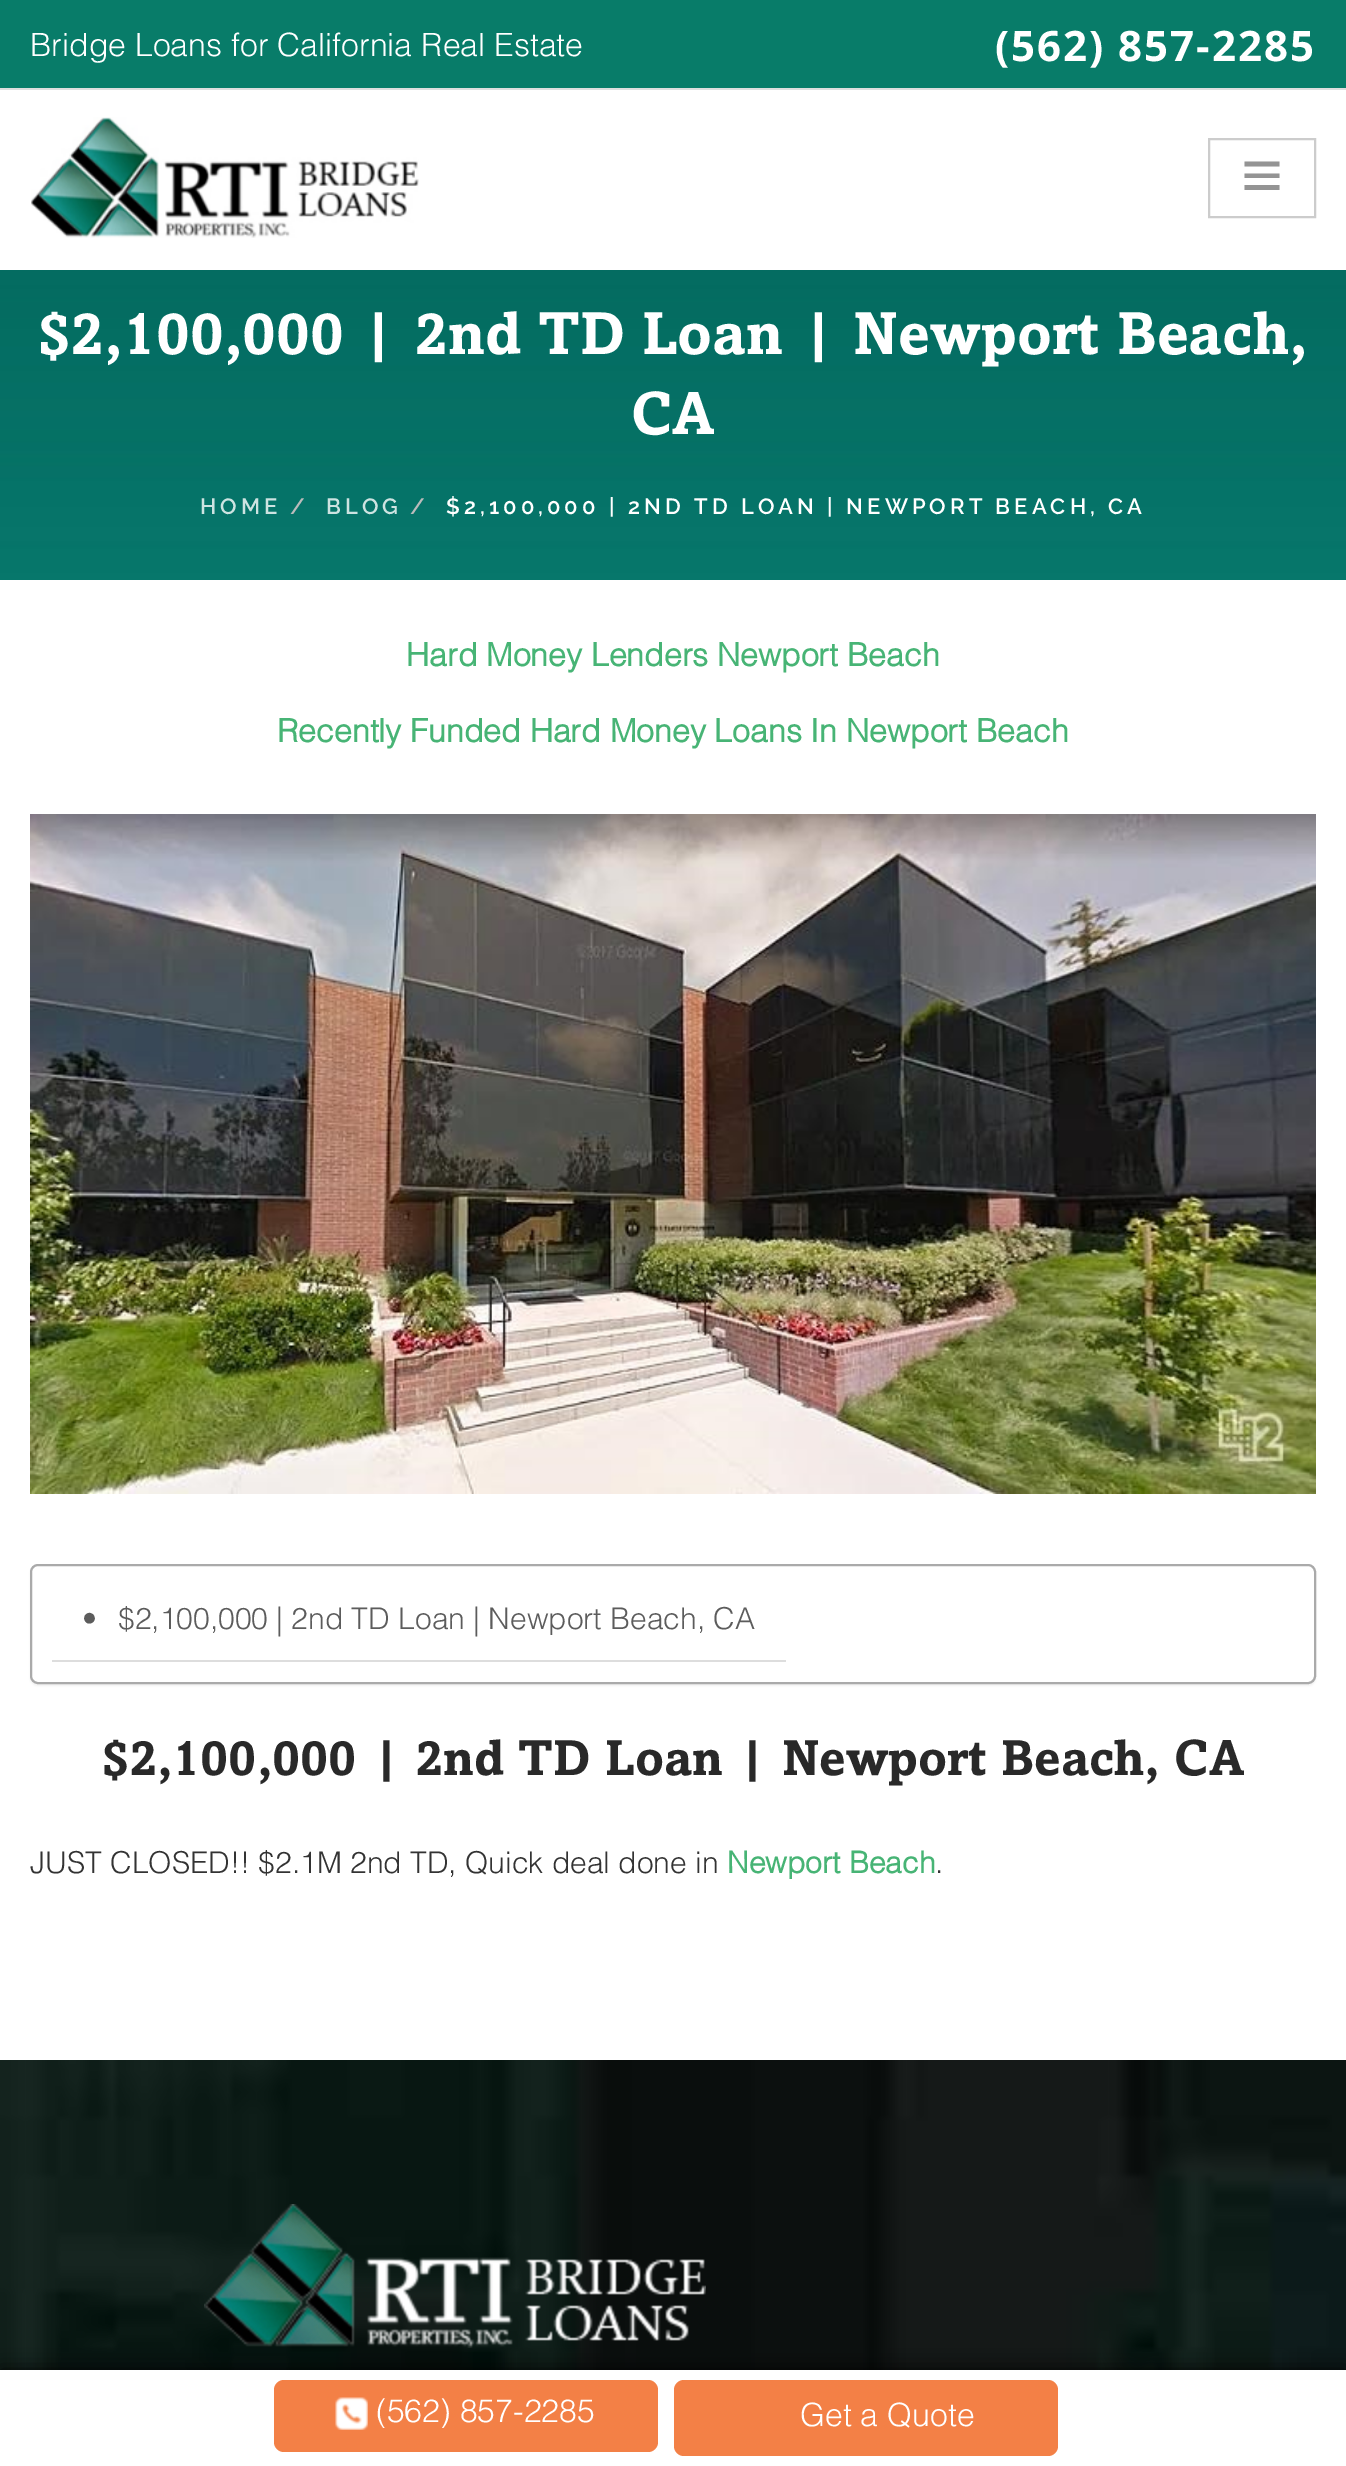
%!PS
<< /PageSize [1346 2466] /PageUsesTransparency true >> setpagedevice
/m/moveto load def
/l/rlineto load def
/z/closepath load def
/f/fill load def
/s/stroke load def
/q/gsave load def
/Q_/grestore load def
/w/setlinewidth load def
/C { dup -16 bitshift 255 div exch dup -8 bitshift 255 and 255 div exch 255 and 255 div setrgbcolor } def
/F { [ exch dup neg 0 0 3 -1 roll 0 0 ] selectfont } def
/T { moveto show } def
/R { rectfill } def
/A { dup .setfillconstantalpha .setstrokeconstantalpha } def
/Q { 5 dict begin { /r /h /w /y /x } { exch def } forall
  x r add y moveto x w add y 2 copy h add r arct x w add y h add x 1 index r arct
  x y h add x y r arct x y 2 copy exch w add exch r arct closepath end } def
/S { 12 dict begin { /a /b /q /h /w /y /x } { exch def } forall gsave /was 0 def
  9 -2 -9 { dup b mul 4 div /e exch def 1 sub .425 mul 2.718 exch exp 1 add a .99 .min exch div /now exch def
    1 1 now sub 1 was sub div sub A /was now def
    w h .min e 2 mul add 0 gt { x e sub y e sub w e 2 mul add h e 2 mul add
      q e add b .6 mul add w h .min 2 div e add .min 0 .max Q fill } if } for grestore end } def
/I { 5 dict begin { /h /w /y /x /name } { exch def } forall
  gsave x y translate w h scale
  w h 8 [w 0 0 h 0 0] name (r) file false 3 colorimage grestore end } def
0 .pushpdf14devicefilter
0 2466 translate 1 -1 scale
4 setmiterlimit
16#FFFFFF C
0 0 1346 2466 R
16#087C69 C
0 0 1346 88 R
16#DEDEDE C
0 88 1346 2 R
/Helvetica-Light 32 F
16#FFFFFF C
(Bridge Loans for California Real Estate) 30 56 T
/OpenSans-Bold 42 F
995 61 m 2 0 (\(562\) 857-2285) ashow
(1.rgb) 31 117 388 121 I
16#CCCCCC C
2 w
1209 139 106 78 rectstroke
16#949494 C
1279.5 161.5 m 0 5 l -35 0 l 0 -5 l z 1244.5 178 m 35 0 l 0 -4.5 l -35 0 l z 1244.5 190 m 35 0 l 0 -5 l -35 0 l z f
(2.rgb) 0 270 1346 310 I
/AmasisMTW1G-Bold 60 F
16#FFFFFF C
($2,100,000 | 2nd TD Loan | Newport Beach,) 38 354 T
(CA) 631 434 T
/Raleway-SemiBold 22 F
16#CDE3E1 C
200 514 m 4 0 (HOME) ashow
16#BBBBBB C
290 514 m 4 0 (/) ashow
16#CDE3E1 C
326 514 m 4 0 (BLOG) ashow
16#BBBBBB C
410 514 m 4 0 (/) ashow
16#FFFFFF C
446 514 m 4 0 ($2,100,000 | 2ND TD LOAN | NEWPORT BEACH, CA) ashow
/Helvetica-Bold 32 F
16#47B475 C
(Hard Money Lenders Newport Beach) 406 666 T
(Recently Funded Hard Money Loans In Newport Beach) 277 742 T
(3.rgb) 30 814 1286 680 I
16#000000 C
30 1566 1286 120 8 1 .05 S
16#FFFFFF C
31 1565 1284 118 7 Q q f Q_
16#AAAAAA C
s
16#DDDDDD C
52 1660 734 2 R
/Helvetica-Light 30 F
16#5C5C5C C
(•) 82 1629 T
($2,100,000 | 2nd TD Loan | Newport Beach, CA) 118 1629 T
/AmasisMTW1G-Bold 50 F
16#292929 C
($2,100,000 | 2nd TD Loan | Newport Beach, CA) 102 1775 T
/Helvetica-Light 30 F
16#333333 C
(JUST CLOSED!! $2.1M 2nd TD, Quick deal done in) 30 1873 T
/Helvetica-Bold 30 F
16#47B475 C
(Newport Beach) 727 1873 T
/Helvetica-Light 30 F
16#333333 C
(.) 935 1873 T
(4.rgb) 0 2060 1346 310 I
(5.rgb) 204 2204 502 144 I
16#000000 C
0 2370 1346 96 0 10 .9 S
16#FFFFFF C
0 2370 1346 96 R
16#F38046 C
274 2380 384 72 10 Q f
(6.rgb) 335 2397 33 33 I
/Helvetica-Light 32 F
16#FFFFFF C
(\(562\) 857-2285) 376 2422 T
16#F38046 C
674 2380 384 76 10 Q f
16#FFFFFF C
(Get a Quote) 800 2426 T
.poppdf14devicefilter showpage
